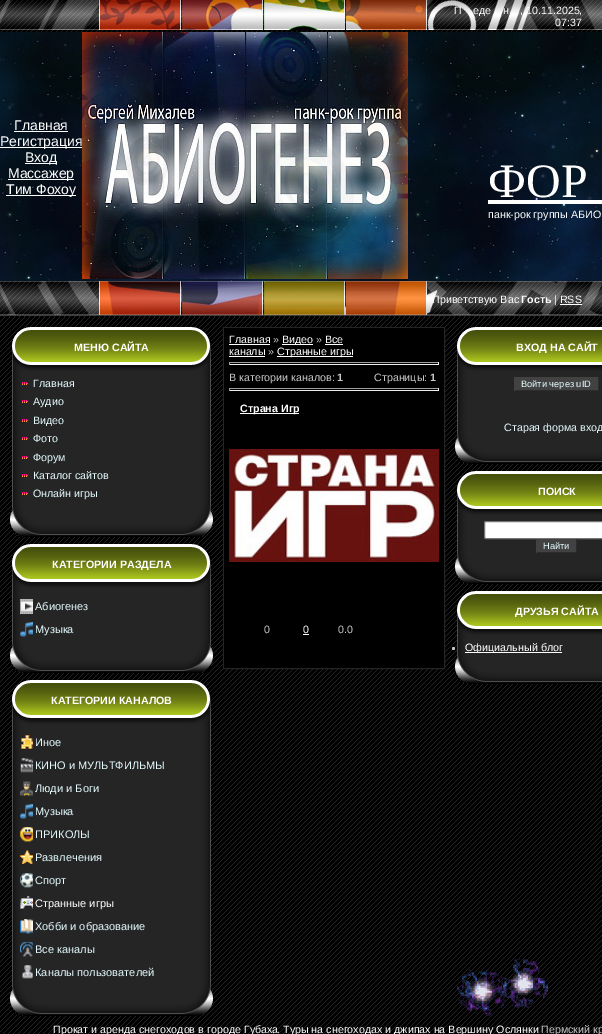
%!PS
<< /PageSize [602 1034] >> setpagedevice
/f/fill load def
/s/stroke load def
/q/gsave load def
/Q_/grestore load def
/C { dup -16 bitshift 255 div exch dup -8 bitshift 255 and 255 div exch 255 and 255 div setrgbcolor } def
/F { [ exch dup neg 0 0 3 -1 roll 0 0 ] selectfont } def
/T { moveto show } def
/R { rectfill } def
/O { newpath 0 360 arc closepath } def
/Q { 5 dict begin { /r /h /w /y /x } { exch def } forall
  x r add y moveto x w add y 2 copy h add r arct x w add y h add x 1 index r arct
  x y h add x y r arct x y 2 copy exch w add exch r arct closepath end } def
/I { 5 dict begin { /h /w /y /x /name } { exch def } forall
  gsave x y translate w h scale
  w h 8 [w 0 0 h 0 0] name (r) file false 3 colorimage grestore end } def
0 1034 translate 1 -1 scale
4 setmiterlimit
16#FFFFFF C
0 0 602 1034 R
(1.rgb) 0 317 602 717 I
(2.rgb) 0 30 602 2 I
(3.rgb) 0 0 100 30 I
(4.rgb) 100 0 326 30 I
(5.rgb) 426 0 176 30 I
/LiberationSans-Regular 10.7 F
(П) 454 14 T
(еде) 473 14 T
(н) 503 14 T
(, 10.11.2025,) 520 14 T
(07:37) 555 26 T
(6.rgb) 0 32 408 249 I
(7.rgb) 17 41 65 239 I
/LiberationSans-Regular 14 F
(Главная) 14 130 T
14 131 54 1 R
0 147 82 1 R
(Регистрация) 0 146 T
25 163 32 1 R
(Вход) 25 162 T
8 179 66 1 R
(Массажер) 8 178 T
6 195 70 1 R
(Тим Фохоу) 6 194 T
(8.rgb) 82 32 326 247 I
(9.rgb) 408 32 194 249 I
/LiberationSerif-Regular 48 F
(ФОР) 488 197 T
488 200 114 4 R
/LiberationSans-Regular 10.7 F
(панк-рок группы АБИО) 488 218 T
(10.rgb) 0 315 602 2 I
(11.rgb) 0 281 100 34 I
(12.rgb) 100 281 326 34 I
(13.rgb) 426 281 176 34 I
(Приветствую Вас) 432 303 T
/LiberationSans-Bold 10.7 F
(Гость) 521 303 T
/LiberationSans-Regular 10.7 F
(| RSS) 554 303 T
560 304 22 1 R
(14.rgb) 12 327 199 45 I
/LiberationSans-Bold 10.7 F
(МЕНЮ САЙТА) 74 351 T
(15.rgb) 12 372 199 134 I
(16.rgb) 22 382 6 3 I
/LiberationSans-Regular 10.7 F
16#E4FAFD C
(Главная) 33 387 T
(16.rgb) 22 400 6 3 I
(Аудио) 33 405 T
(16.rgb) 22 419 6 3 I
(Видео) 33 424 T
(16.rgb) 22 437 6 3 I
(Фото) 33 442 T
(16.rgb) 22 456 6 3 I
(Форум) 33 461 T
(16.rgb) 22 474 6 3 I
(Каталог сайтов) 33 479 T
(16.rgb) 22 492 6 3 I
(Онлайн игры) 33 497 T
(17.rgb) 10 506 203 31 I
(18.rgb) 12 544 199 45 I
/LiberationSans-Bold 10.7 F
16#FFFFFF C
(КАТЕГОРИИ РАЗДЕЛА) 52 568 T
(19.rgb) 12 589 199 53 I
(20.rgb) 20 599 13 15 I
/LiberationSans-Regular 11 F
16#E4FAFD C
(Абиогенез) 35 610 T
(21.rgb) 20 622 13 15 I
(Музыка) 35 633 T
(22.rgb) 10 642 203 31 I
(23.rgb) 12 680 199 45 I
/LiberationSans-Bold 10.7 F
16#FFFFFF C
(КАТЕГОРИИ КАНАЛОВ) 51 704 T
(24.rgb) 12 725 199 260 I
(25.rgb) 21 735 12 15 I
/LiberationSans-Regular 11 F
16#E4FAFD C
(Иное) 35 746 T
(26.rgb) 20 758 13 15 I
(КИНО и МУЛЬТФИЛЬМЫ) 35 769 T
(27.rgb) 20 781 13 15 I
(Люди и Боги) 35 792 T
(21.rgb) 20 804 13 15 I
(Музыка) 35 815 T
(28.rgb) 20 827 13 15 I
(ПРИКОЛЫ) 35 838 T
(29.rgb) 20 850 13 15 I
(Развлечения) 35 861 T
(30.rgb) 20 873 13 15 I
(Спорт) 35 884 T
(31.rgb) 20 896 13 14 I
16#FFFFFF C
(Странные игры) 35 907 T
(32.rgb) 20 919 13 15 I
16#E4FAFD C
(Хобби и образование) 35 930 T
(33.rgb) 20 942 13 15 I
(Все каналы) 35 953 T
(34.rgb) 22 965 11 14 I
(Каналы пользователей) 35 976 T
(35.rgb) 10 985 203 31 I
16#252525 C
223.5 327.5 221 341 rectstroke
16#000000 C
224 328 220 340 R
/LiberationSans-Regular 10.7 F
16#FFFFFF C
(Главная) 229 343 T
229 344 41 1 R
16#C8C8C8 C
(») 273 343 T
16#FFFFFF C
282 344 31 1 R
(Видео) 282 343 T
16#C8C8C8 C
(») 316 343 T
16#FFFFFF C
(Все) 325 343 T
325 344 18 1 R
(каналы) 229 355 T
229 356 36 1 R
16#C8C8C8 C
(») 268 355 T
16#FFFFFF C
277 356 76 1 R
(Странные игры) 277 355 T
16#9F9F9F C
229 362 210 1 R
16#EEEEEE C
438 362 1 3 R
229 364 210 1 R
16#9F9F9F C
229 362 1 3 R
16#C8C8C8 C
(В категории каналов:) 229 381 T
/LiberationSans-Bold 10.7 F
(1) 337 381 T
/LiberationSans-Regular 10.7 F
(Страницы:) 374 381 T
/LiberationSans-Bold 10.7 F
(1) 430 381 T
16#9F9F9F C
229 388 210 1 R
16#EEEEEE C
438 388 1 3 R
229 390 210 1 R
16#9F9F9F C
229 388 1 3 R
16#FFFFFF C
240 413 59 1 R
(Страна Игр) 240 412 T
(36.rgb) 229 449 210 113 I
/LiberationSans-Regular 10.7 F
16#C8C8C8 C
(0) 264 633 T
16#FFFFFF C
(0) 303 633 T
303 634 6 1 R
16#C8C8C8 C
(0.0) 338 633 T
(37.rgb) 457 327 145 45 I
/LiberationSans-Bold 10.7 F
16#FFFFFF C
(ВХОД НА САЙТ) 516 351 T
(38.rgb) 457 372 145 61 I
16#424242 C
515 377 83 13 R
16#2C2C2C C
598 377 1 14 R
514 390 85 1 R
16#424242 C
514 377 1 14 R
/LiberationSans-Regular 9.25 F
16#E4FAFD C
(Войти через uID) 521 387 T
/LiberationSans-Regular 10.7 F
(Старая форма вход) 504 431 T
(39.rgb) 455 433 147 31 I
(40.rgb) 457 471 145 45 I
/LiberationSans-Bold 10.7 F
16#FFFFFF C
(ПОИСК) 538 495 T
(41.rgb) 457 516 145 37 I
484.5 521.5 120 17 1.5 Q q f Q_
16#767676 C
s
16#424242 C
537 539 39 13 R
16#2C2C2C C
576 539 1 14 R
536 552 41 1 R
16#424242 C
536 539 1 14 R
/LiberationSans-Regular 9.25 F
16#E4FAFD C
(Найти) 543 549 T
(39.rgb) 455 553 147 31 I
(40.rgb) 457 591 145 45 I
/LiberationSans-Bold 10.7 F
16#FFFFFF C
(ДРУЗЬЯ САЙТА) 515 615 T
(42.rgb) 457 636 145 17 I
16#C8C8C8 C
453.5 648.5 1.5 O f
16#FFFFFF C
465 652 97 1 R
/LiberationSans-Regular 10.7 F
(Официальный блог) 465 651 T
(39.rgb) 455 653 147 31 I
(44.rgb) 498 958 50 50 I
(43.rgb) 457 969 49 47 I
(Прокат и аренда снегоходов в городе Губаха) 53 1033 T
16#C8C8C8 C
(.) 277 1033 T
16#FFFFFF C
(Туры на снегоходах и джипах на Вершину Ослянки) 283 1033 T
16#C8C8C8 C
(Пермский кр) 541 1033 T
showpage
